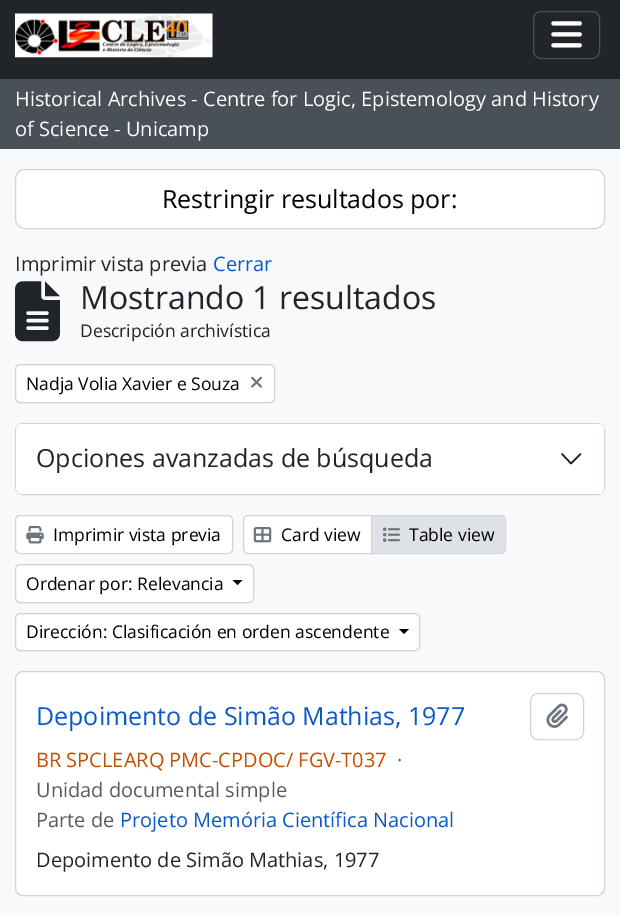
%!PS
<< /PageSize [620 915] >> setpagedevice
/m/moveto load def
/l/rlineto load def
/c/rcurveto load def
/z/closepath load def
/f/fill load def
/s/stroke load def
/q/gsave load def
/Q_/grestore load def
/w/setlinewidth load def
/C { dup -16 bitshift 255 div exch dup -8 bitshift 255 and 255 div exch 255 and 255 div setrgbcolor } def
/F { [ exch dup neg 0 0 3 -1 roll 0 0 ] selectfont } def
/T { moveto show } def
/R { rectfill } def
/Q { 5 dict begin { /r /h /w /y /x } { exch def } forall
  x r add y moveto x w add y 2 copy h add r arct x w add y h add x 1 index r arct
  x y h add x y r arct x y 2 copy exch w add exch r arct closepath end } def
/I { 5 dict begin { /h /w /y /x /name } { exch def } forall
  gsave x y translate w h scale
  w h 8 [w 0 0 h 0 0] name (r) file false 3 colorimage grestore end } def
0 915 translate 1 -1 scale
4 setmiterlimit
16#F8F9FA C
0 0 620 915 R
16#212529 C
0 0 620 79 R
(1.rgb) 15 13 198 45 I
16#495057 C
533.5 11.5 66 47 7.5 Q s
(2.rgb) 551 21 31 27 I
0 79 620 70 R
/OpenSans-Regular 20 F
16#FFFFFF C
(Historical Archives - Centre for Logic, Epistemology and History) 15 106 T
(of Science - Unicamp) 15 136 T
15.5 169.5 589 59 9.5 Q q f Q_
16#CED4DA C
s
/OpenSans-Regular 25 F
16#000000 C
(Restringir resultados por:) 162 208 T
/OpenSans-Regular 20 F
16#212529 C
(Imprimir vista previa) 15 271 T
16#0A58CA C
(Cerrar) 213 271 T
(3.rgb) 15 281 45 61 I
/OpenSans-Regular 32 F
16#212529 C
(Mostrando 1 resultados) 80 309 T
/OpenSans-Regular 17.5 F
(Descripción archivística) 80 337 T
16#FFFFFF C
15.5 364.5 259 38 4.5 Q q f Q_
16#CED4DA C
s
16#000000 C
(Nadja Volia Xavier e Souza) 26 390 T
(4.rgb) 251 376 11 12 I
16#CED4DA C
15.5 423.5 589 71 7.5 Q s
16#FFFFFF C
16 424 588 70 6 Q f
/OpenSans-Regular 25 F
16#212529 C
(Opciones avanzadas de búsqueda) 36 467 T
1.6 w
1 setlinecap
1 setlinejoin
562 454 m 9 9.5 l 9.5 -9.5 l s
16#FFFFFF C
15.5 515.5 217 38 4.5 Q q f Q_
16#CED4DA C
1 w
0 setlinecap
0 setlinejoin
s
(5.rgb) 26 525 18 19 I
/OpenSans-Regular 17.5 F
16#000000 C
(Imprimir vista previa) 53 541 T
16#FFFFFF C
248 515.5 m 124.5 0 l 0 38 l -124.5 0 l -2.5 0 -4.5 -2 -4.5 -4.5 c 0 -29 l 0 -2.5 2 -4.5 4.5 -4.5 c z q f Q_
16#CED4DA C
s
(6.rgb) 253 527 19 16 I
16#000000 C
(Card view) 281 541 T
16#DEE2E6 C
371.5 515.5 m 129.5 0 l 2.5 0 4.5 2 4.5 4.5 c 0 29 l 0 2.5 -2 4.5 -4.5 4.5 c -129.5 0 l z q f Q_
16#D3D8DE C
s
(7.rgb) 383 527 17 15 I
16#000000 C
(Table view) 409 541 T
16#FFFFFF C
15.5 564.5 238 38 4.5 Q q f Q_
16#CED4DA C
s
16#000000 C
(Ordenar por: Relevancia) 26 590 T
232.5 580 m 10 0 l -5 5 l z f
16#FFFFFF C
15.5 613.5 404 37 4.5 Q q f Q_
16#CED4DA C
s
16#000000 C
(Dirección: Clasificación en orden ascendente) 26 638 T
399 629 m 10 0 l -5 5 l z f
16#FFFFFF C
15.5 671.5 589 224 7.5 Q q f Q_
16#CED4DA C
s
/OpenSans-Regular 25 F
16#0A58CA C
(Depoimento de Simão Mathias, 1977) 36 725 T
16#CED4DA C
530.5 693.5 53 46 7.5 Q s
(8.rgb) 546 703 22 25 I
/OpenSans-Regular 20 F
16#C44E00 C
(BR SPCLEARQ PMC-CPDOC/ FGV-T037) 36 767 T
16#595C5F C
(·) 397 767 T
(Unidad documental simple) 36 797 T
(Parte de) 36 827 T
16#0A58CA C
(Projeto Memória Científica Nacional) 120 827 T
16#212529 C
(Depoimento de Simão Mathias, 1977) 36 867 T
showpage
